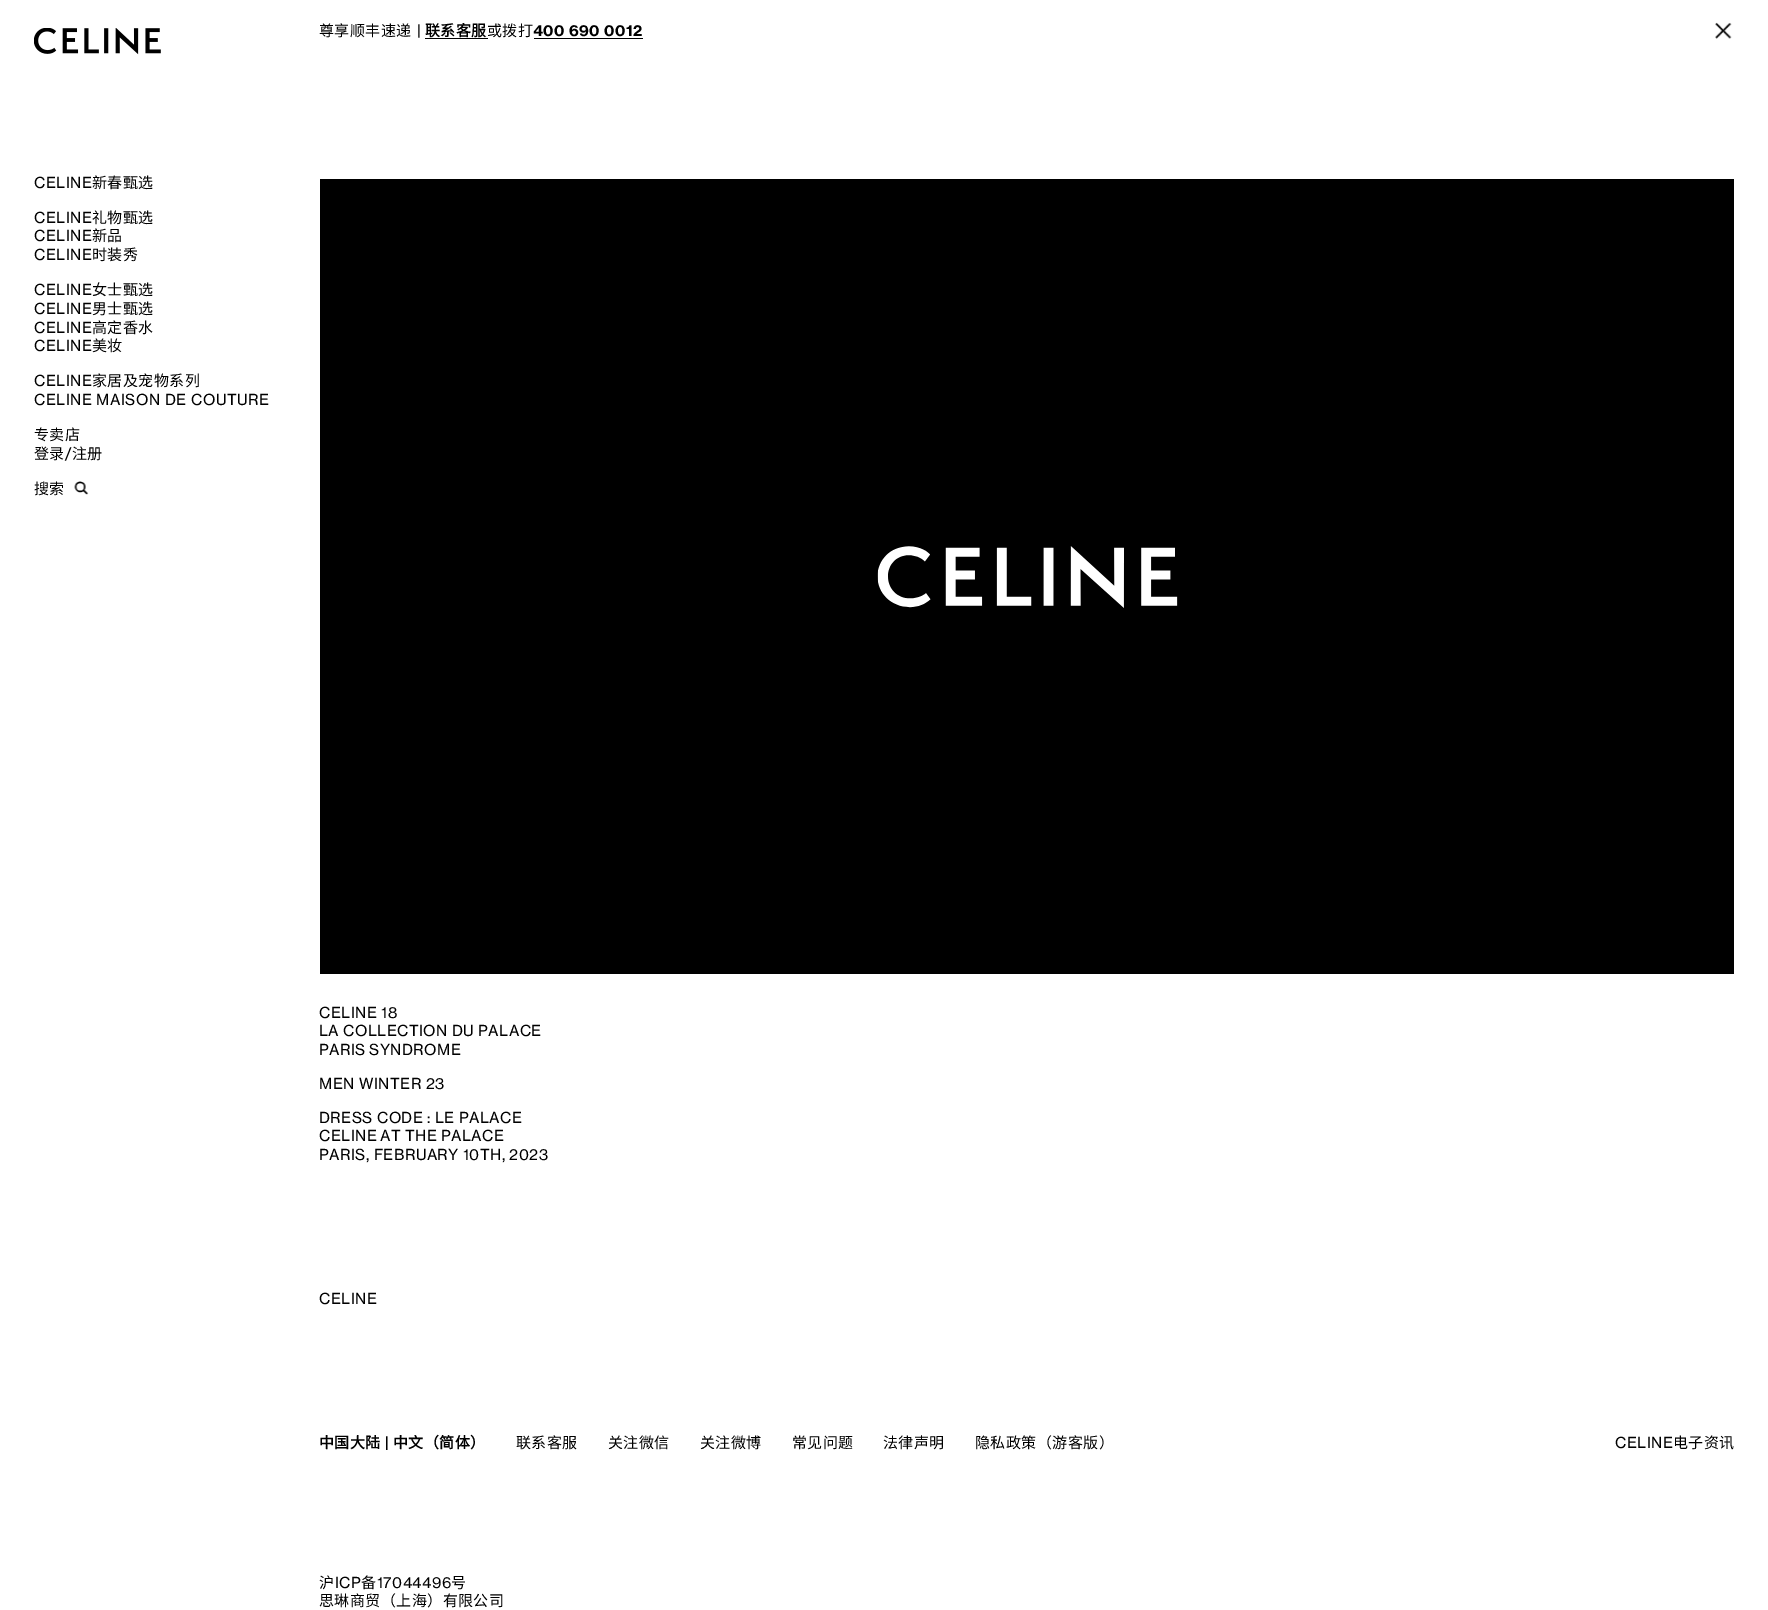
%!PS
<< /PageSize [1768 1610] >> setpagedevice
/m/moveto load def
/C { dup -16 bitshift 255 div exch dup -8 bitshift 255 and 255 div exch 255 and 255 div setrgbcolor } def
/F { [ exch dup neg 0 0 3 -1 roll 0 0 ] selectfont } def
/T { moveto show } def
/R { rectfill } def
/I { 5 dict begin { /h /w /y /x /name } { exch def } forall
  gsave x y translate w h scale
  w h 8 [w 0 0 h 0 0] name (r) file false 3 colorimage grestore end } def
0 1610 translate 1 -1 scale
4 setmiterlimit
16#FFFFFF C
0 0 1768 1610 R
/NotoSansCJKSC-Regular 15 F
16#000000 C
319 36 m .45 0 (尊享顺丰速递) ashow
/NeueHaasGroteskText-Regular 15 F
417 36 m .45 0 (|) ashow
/NotoSansCJKSC-Bold 15 F
425 36 m .45 0 (联系客服) ashow
425 38 63 1 R
/NotoSansCJKSC-Regular 15 F
487 36 m .45 0 (或拨打) ashow
/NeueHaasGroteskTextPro-Bold 15 F
533 36 m .45 0 (400 690 0012) ashow
534 38 109 1 R
(1.rgb) 1715 22 17 17 I
(2.rgb) 34 28 127 27 I
/NeueHaasGroteskText-Regular 15 F
34 188 m .45 0 (CELINE) ashow
/NotoSansCJKSC-Regular 15 F
92 188 m .45 0 (新春甄选) ashow
/NeueHaasGroteskText-Regular 15 F
34 223 m .45 0 (CELINE) ashow
/NotoSansCJKSC-Regular 15 F
92 223 m .45 0 (礼物甄选) ashow
/NeueHaasGroteskText-Regular 15 F
34 241 m .45 0 (CELINE) ashow
/NotoSansCJKSC-Regular 15 F
92 241 m .45 0 (新品) ashow
/NeueHaasGroteskText-Regular 15 F
34 260 m .45 0 (CELINE) ashow
/NotoSansCJKSC-Regular 15 F
92 260 m .45 0 (时装秀) ashow
/NeueHaasGroteskText-Regular 15 F
34 295 m .45 0 (CELINE) ashow
/NotoSansCJKSC-Regular 15 F
92 295 m .45 0 (女士甄选) ashow
/NeueHaasGroteskText-Regular 15 F
34 314 m .45 0 (CELINE) ashow
/NotoSansCJKSC-Regular 15 F
92 314 m .45 0 (男士甄选) ashow
/NeueHaasGroteskText-Regular 15 F
34 333 m .45 0 (CELINE) ashow
/NotoSansCJKSC-Regular 15 F
92 333 m .45 0 (高定香水) ashow
/NeueHaasGroteskText-Regular 15 F
34 351 m .45 0 (CELINE) ashow
/NotoSansCJKSC-Regular 15 F
92 351 m .45 0 (美妆) ashow
/NeueHaasGroteskText-Regular 15 F
34 386 m .45 0 (CELINE) ashow
/NotoSansCJKSC-Regular 15 F
92 386 m .45 0 (家居及宠物系列) ashow
/NeueHaasGroteskText-Regular 15 F
34 405 m .45 0 (CELINE MAISON DE COUTURE) ashow
/NotoSansCJKSC-Regular 15 F
34 440 m .45 0 (专卖店) ashow
34 459 m .45 0 (登录) ashow
/NeueHaasGroteskText-Regular 15 F
65 459 m .45 0 (/) ashow
/NotoSansCJKSC-Regular 15 F
72 459 m .45 0 (注册) ashow
(搜索) 34 494 T
(3.rgb) 74 481 15 14 I
320 179 1414 795 R
(4.rgb) 877 546 301 62 I
/NeueHaasGroteskText-Regular 15 F
319 1018 m .45 0 (CELINE 18) ashow
319 1036 m -.5 0 32 .45 0 (LA COLLECTION DU PALACE) awidthshow
319 1055 m -1 0 32 .45 0 (PARIS SYNDROME) awidthshow
319 1089 m .45 0 (MEN WINTER 23) ashow
319 1123 m -.5 0 32 .45 0 (DRESS CODE : LE PALACE) awidthshow
319 1141 m -1 0 32 .45 0 (CELINE AT THE PALACE) awidthshow
319 1160 m -.5 0 32 .45 0 (PARIS, FEBRUARY 10TH, 2023) awidthshow
319 1304 m .45 0 (CELINE) ashow
/NotoSansCJKSC-Bold 15 F
319 1448 m .45 0 (中国大陆) ashow
/NeueHaasGroteskTextPro-Bold 15 F
385 1448 m .45 0 (|) ashow
/NotoSansCJKSC-Bold 15 F
393 1448 m .45 0 (中文（简体）) ashow
/NotoSansCJKSC-Regular 15 F
516 1448 m .45 0 (联系客服) ashow
608 1448 m .45 0 (关注微信) ashow
700 1448 m .45 0 (关注微博) ashow
792 1448 m .45 0 (常见问题) ashow
883 1448 m .45 0 (法律声明) ashow
975 1448 m .45 0 (隐私政策（游客版）) ashow
/NeueHaasGroteskText-Regular 15 F
1615 1448 m .45 0 (CELINE) ashow
/NotoSansCJKSC-Regular 15 F
1673 1448 m .45 0 (电子资讯) ashow
319 1588 m .45 0 (沪) ashow
/NeueHaasGroteskText-Regular 15 F
335 1588 m .45 0 (ICP) ashow
/NotoSansCJKSC-Regular 15 F
361 1588 m .45 0 (备) ashow
/NeueHaasGroteskText-Regular 15 F
377 1588 m .45 0 (17044496) ashow
/NotoSansCJKSC-Regular 15 F
451 1588 m .45 0 (号) ashow
319 1606 m .45 0 (思琳商贸（上海）有限公司) ashow
showpage
